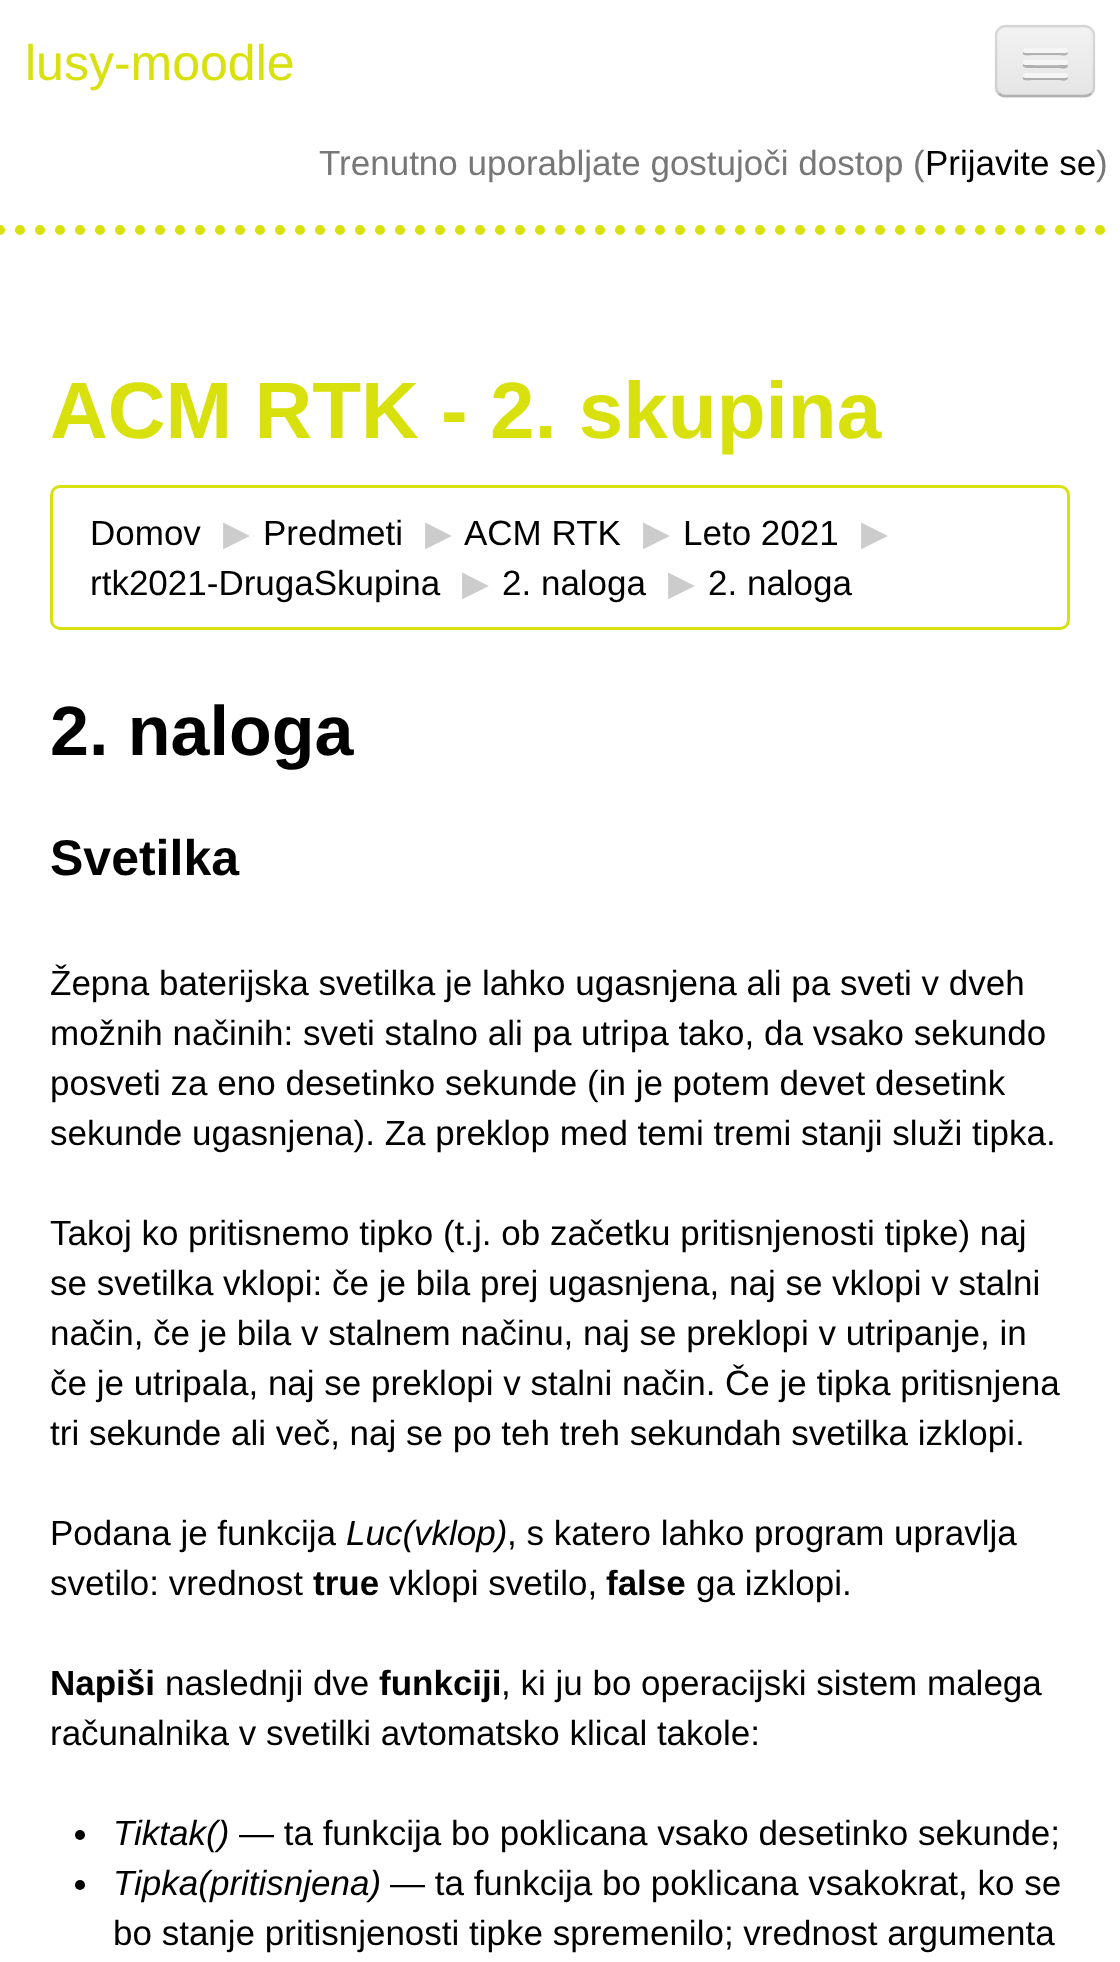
async function draw(canvas) {
  canvas.width = 1120;
  canvas.height = 1962;
  const ctx = canvas.getContext('2d');
  ctx.miterLimit = 4;
  ctx.fontKerning = 'normal';
  function label(s, x, y, font, color) {
    ctx.font = font;
    ctx.fillStyle = color;
    ctx.fillText(s, x, y);
  }
  function rect(x, y, w, h, color) {
    ctx.fillStyle = color;
    ctx.fillRect(x, y, w, h);
  }
  function roundedRect(x, y, w, h, r, color) {
    ctx.fillStyle = color;
    ctx.beginPath();
    ctx.roundRect(x, y, w, h, r);
    ctx.fill();
  }
  let gradient, path;

  rect(0, 0, 1120, 1962, '#fff');
  path = new Path2D('M0 230H1120');
  ctx.strokeStyle = '#d8e00d';
  ctx.lineWidth = 10;
  ctx.lineCap = 'round';
  ctx.setLineDash([0, 20]);
  ctx.stroke(path);
  label('lusy-moodle', 25, 80, '50px Liberation Sans', '#d8e00d');
  roundedRect(995, 25, 100, 73, 10, '#ededed');
  ctx.save();
  ctx.beginPath();
  ctx.roundRect(995, 25, 100, 73, 10);
  ctx.clip();
  gradient = ctx.createLinearGradient(1045, 27, 1045, 95);
  gradient.addColorStop(0, '#f2f2f2');
  gradient.addColorStop(1, '#e5e5e5');
  ctx.fillStyle = gradient;
  ctx.fillRect(995, 28, 100, 67);
  ctx.restore();
  path = new Path2D('M1091 93.5C1089.5 95.5 1087.5 96 1085 96H1005C1002.5 96 1000.5 95.5 999 93.5');
  ctx.strokeStyle = '#00000040';
  ctx.lineWidth = 2.5;
  ctx.lineCap = 'butt';
  ctx.setLineDash([]);
  ctx.stroke(path);
  path = new Path2D('M999 93.5C997 92 996 90 996 87.5V35C996 32.5 997 30.5 999 29C1000.5 27 1002.5 26 1005 26H1085C1087.5 26 1089.5 27 1091 29C1093 30.5 1094 32.5 1094 35V87.5C1094 90 1093 92 1091 93.5');
  ctx.strokeStyle = '#0000001a';
  ctx.stroke(path);
  ctx.fillStyle = '#b2b2b2';
  path = new Path2D('M1023 52C1021 57 1031 55 1032 55H1059C1060 55 1067 57 1068 53L1067 51L1065 52H1025Z');
  ctx.fill(path);
  roundedRect(1023, 48, 45, 5, 2.5, '#f5f5f5');
  ctx.fillStyle = '#b0b0b0';
  path = new Path2D('M1023 64C1021 69 1032 68 1032 68H1059C1060 68 1067 70 1068 66L1067 64L1065 65C1062 65 1025 66 1023 64Z');
  ctx.fill(path);
  roundedRect(1023, 60, 45, 5, 2.5, '#f5f5f5');
  ctx.fillStyle = '#aeaeae';
  path = new Path2D('M1023 77C1021 82 1031 80 1032 80H1059C1060 80 1067 82 1068 78L1067 76L1065 77H1025Z');
  ctx.fill(path);
  roundedRect(1023, 73, 45, 5, 2.5, '#f5f5f5');
  label('Trenutno uporabljate gostujoči dostop (', 319, 175, '35px Liberation Sans', '#777');
  label('Prijavite se', 925, 175, '35px Liberation Sans', '#000001');
  label(')', 1096, 175, '35px Liberation Sans', '#777');
  label('ACM RTK - 2. skupina', 50, 438, 'bold 80px Liberation Sans', '#d8e00d');
  ctx.beginPath();
  ctx.roundRect(51.5, 486.5, 1017, 142, 8.5);
  ctx.strokeStyle = '#d8e00d';
  ctx.lineWidth = 3;
  ctx.stroke();
  label('Domov', 90, 545, '35px Liberation Sans', '#000001');
  label('▶︎', 223, 545, '35px DejaVu Sans', '#ccc');
  label('Predmeti', 263, 545, '35px Liberation Sans', '#000001');
  label('▶︎', 425, 545, '35px DejaVu Sans', '#ccc');
  label('ACM RTK', 464, 545, '35px Liberation Sans', '#000001');
  label('▶︎', 643, 545, '35px DejaVu Sans', '#ccc');
  label('Leto 2021', 683, 545, '35px Liberation Sans', '#000001');
  label('▶︎', 861, 545, '35px DejaVu Sans', '#ccc');
  label('rtk2021-DrugaSkupina', 90, 595, '35px Liberation Sans', '#000001');
  label('▶︎', 462, 595, '35px DejaVu Sans', '#ccc');
  label('2. naloga', 502, 595, '35px Liberation Sans', '#000001');
  label('▶︎', 668, 595, '35px DejaVu Sans', '#ccc');
  label('2. naloga', 708, 595, '35px Liberation Sans', '#000001');
  label('2. naloga', 50, 755, 'bold 70px Liberation Sans', '#000001');
  label('Svetilka', 50, 875, 'bold 50px Liberation Sans', '#000001');
  label('Žepna baterijska svetilka je lahko ugasnjena ali pa sveti v dveh', 50, 995, '35px Liberation Sans', '#000001');
  label('možnih načinih: sveti stalno ali pa utripa tako, da vsako sekundo', 50, 1045, '35px Liberation Sans', '#000001');
  label('posveti za eno desetinko sekunde (in je potem devet desetink', 50, 1095, '35px Liberation Sans', '#000001');
  label('sekunde ugasnjena). Za preklop med temi tremi stanji služi tipka.', 50, 1145, '35px Liberation Sans', '#000001');
  label('Takoj ko pritisnemo tipko (t.j. ob začetku pritisnjenosti tipke) naj', 50, 1245, '35px Liberation Sans', '#000001');
  label('se svetilka vklopi: če je bila prej ugasnjena, naj se vklopi v stalni', 50, 1295, '35px Liberation Sans', '#000001');
  label('način, če je bila v stalnem načinu, naj se preklopi v utripanje, in', 50, 1345, '35px Liberation Sans', '#000001');
  label('če je utripala, naj se preklopi v stalni način. Če je tipka pritisnjena', 50, 1395, '35px Liberation Sans', '#000001');
  label('tri sekunde ali več, naj se po teh treh sekundah svetilka izklopi.', 50, 1445, '35px Liberation Sans', '#000001');
  label('Podana je funkcija', 50, 1545, '35px Liberation Sans', '#000001');
  label('Luc(vklop)', 346, 1545, 'italic 35px Liberation Sans', '#000001');
  label(', s katero lahko program upravlja', 507, 1545, '35px Liberation Sans', '#000001');
  label('svetilo: vrednost', 50, 1595, '35px Liberation Sans', '#000001');
  label('true', 313, 1595, 'bold 35px Liberation Sans', '#000001');
  label('vklopi svetilo,', 389, 1595, '35px Liberation Sans', '#000001');
  label('false', 606, 1595, 'bold 35px Liberation Sans', '#000001');
  label('ga izklopi.', 696, 1595, '35px Liberation Sans', '#000001');
  label('Napiši', 50, 1695, 'bold 35px Liberation Sans', '#000001');
  label('naslednji dve', 165, 1695, '35px Liberation Sans', '#000001');
  label('funkciji', 379, 1695, 'bold 35px Liberation Sans', '#000001');
  label(', ki ju bo operacijski sistem malega', 501, 1695, '35px Liberation Sans', '#000001');
  label('računalnika v svetilki avtomatsko klical takole:', 50, 1745, '35px Liberation Sans', '#000001');
  ctx.beginPath();
  ctx.arc(80, 1835, 5, 0, 2 * Math.PI);
  ctx.fill();
  label('Tiktak()', 113, 1845, 'italic 35px Liberation Sans', '#000001');
  label('— ta funkcija bo poklicana vsako desetinko sekunde;', 239, 1845, '35px Liberation Sans', '#000001');
  ctx.beginPath();
  ctx.arc(80, 1885, 5, 0, 2 * Math.PI);
  ctx.fill();
  label('Tipka(pritisnjena)', 113, 1895, 'italic 35px Liberation Sans', '#000001');
  label('— ta funkcija bo poklicana vsakokrat, ko se', 390, 1895, '35px Liberation Sans', '#000001');
  label('bo stanje pritisnjenosti tipke spremenilo; vrednost argumenta', 113, 1945, '35px Liberation Sans', '#000001');
}

draw(document.querySelector('canvas'));
